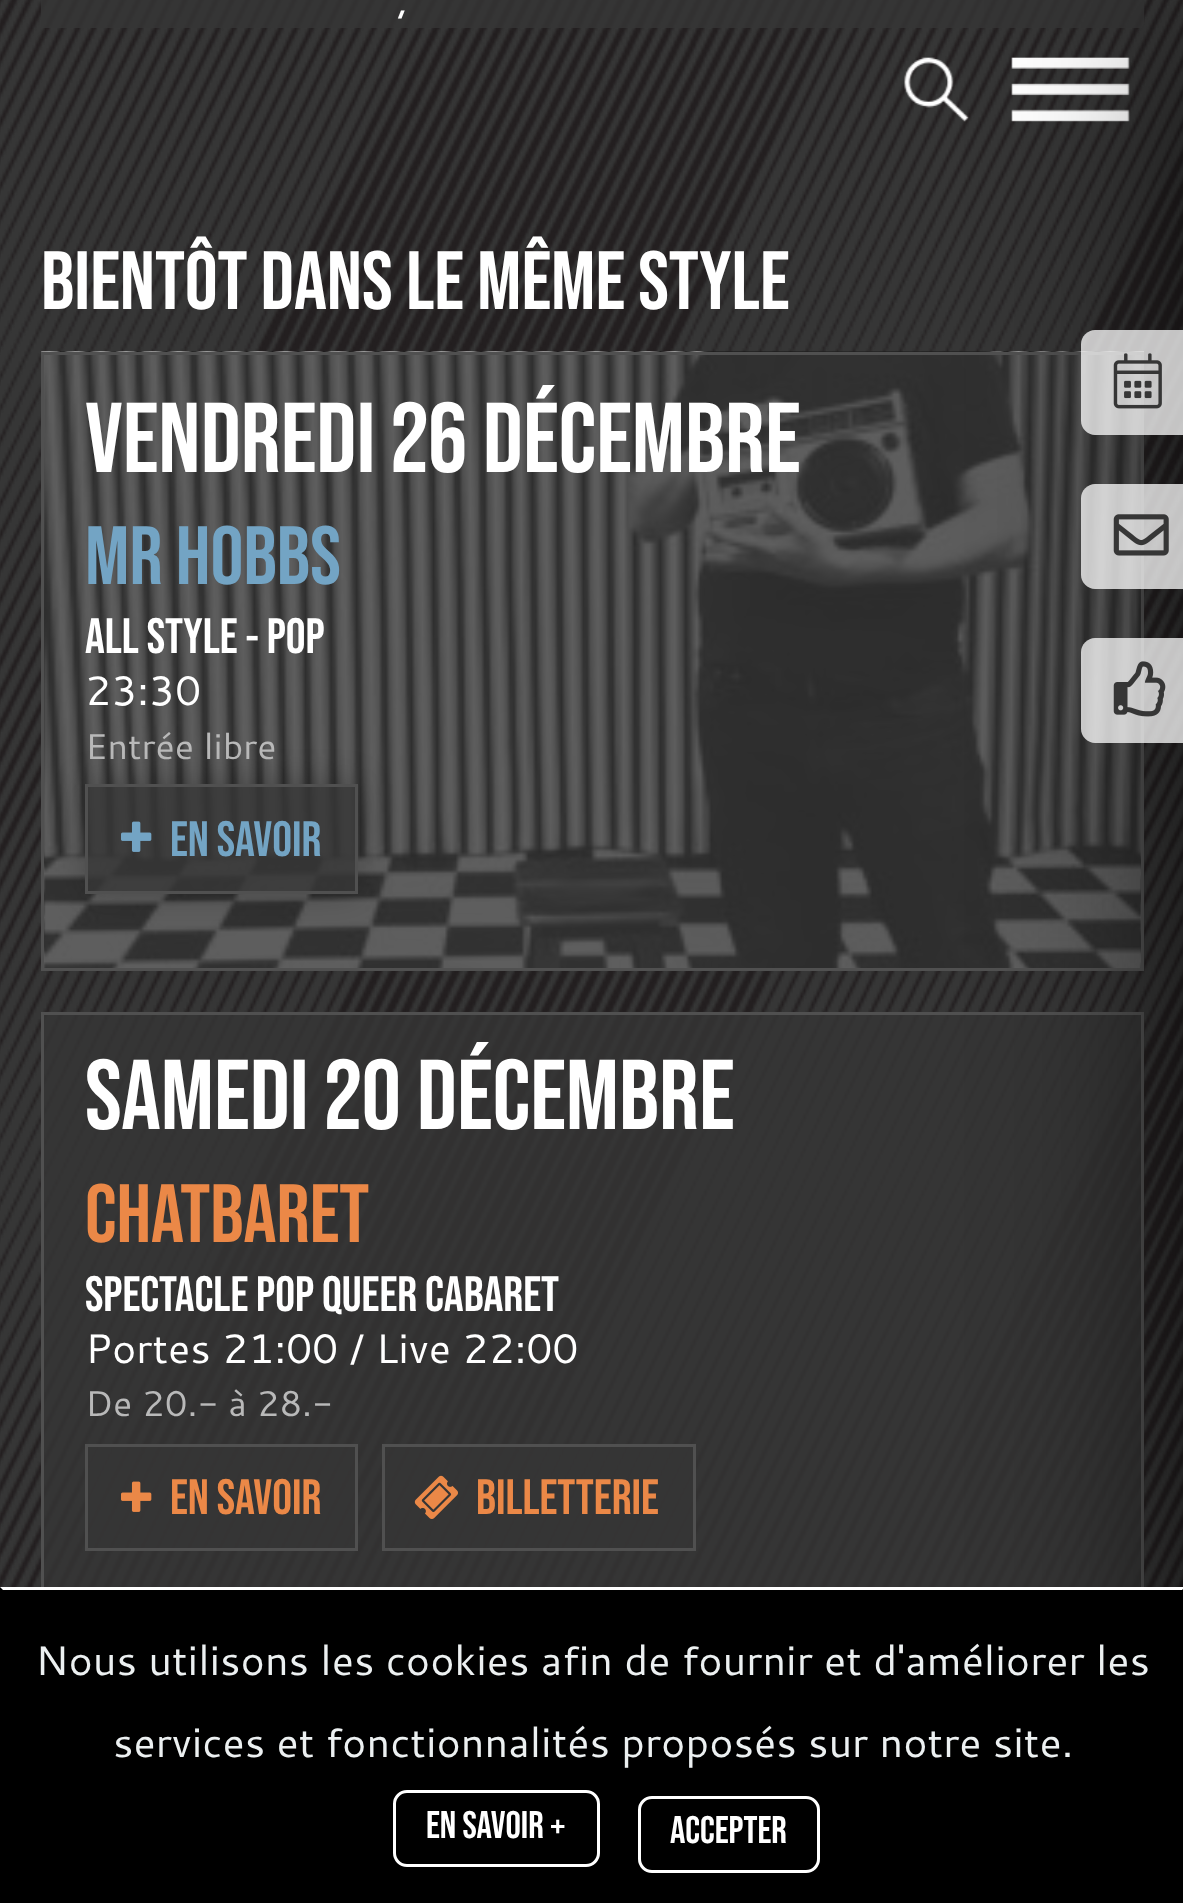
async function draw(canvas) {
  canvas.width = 1183;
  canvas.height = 1903;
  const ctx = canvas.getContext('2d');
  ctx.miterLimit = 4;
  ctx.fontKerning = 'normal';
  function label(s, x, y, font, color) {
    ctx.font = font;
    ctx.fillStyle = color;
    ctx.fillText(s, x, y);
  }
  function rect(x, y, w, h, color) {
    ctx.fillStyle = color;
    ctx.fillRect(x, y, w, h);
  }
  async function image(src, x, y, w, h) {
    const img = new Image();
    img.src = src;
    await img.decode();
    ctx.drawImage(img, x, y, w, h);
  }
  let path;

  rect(0, 0, 1183, 1903, '#363636');
  await image('assets/img1.png', 0, 0, 1183, 1587);
  rect(41, 0, 1103, 28, '#363636cc');
  label(',', 397, 14, '41.25px Cantarell', '#fff');
  label('BIENTÔT DANS LE MÊME STYLE', 41, 309, 'bold 82.5px Bebas Neue', '#fff');
  await image('assets/img2.png', 41, 351, 1103, 617);
  ctx.strokeStyle = '#505050';
  ctx.lineWidth = 3;
  ctx.strokeRect(42.5, 353.5, 1100, 616);
  label('VENDREDI 26 DÉCEMBRE', 85, 472, 'bold 99px Bebas Neue', '#fff');
  label('MR HOBBS', 85, 584, 'bold 82.5px Bebas Neue', '#73a4c4');
  label('ALL STYLE - POP', 85, 653, 'bold 49.5px Bebas Neue', '#fff');
  label('23:30', 85, 705, '41.25px Cantarell', '#fff');
  label('Entrée libre', 85, 759, '35.75px Cantarell', '#b9b9b9');
  ctx.save();
  path = new Path2D('M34 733H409V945H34ZM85 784H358V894H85Z');
  ctx.clip(path, 'evenodd');
  ctx.fillStyle = '#00000040';
  ctx.filter = 'blur(16.5px)';
  ctx.beginPath();
  ctx.rect(85, 784, 273, 110);
  ctx.fill();
  ctx.filter = 'none';
  ctx.restore();
  ctx.fillStyle = '#363636cc';
  ctx.beginPath();
  ctx.rect(86.5, 785.5, 270, 107);
  ctx.fill();
  ctx.stroke();
  await image('assets/img3.png', 121, 821, 31, 31);
  label('EN SAVOIR', 170, 856, 'bold 49.5px Bebas Neue', '#73a4c4');
  ctx.strokeRect(42.5, 1013.5, 1100, 613);
  rect(44, 1015, 1097, 572, '#363636cc');
  label('SAMEDI 20 DÉCEMBRE', 85, 1129, 'bold 99px Bebas Neue', '#fff');
  label('CHATBARET', 85, 1242, 'bold 82.5px Bebas Neue', '#eb8847');
  label('SPECTACLE POP QUEER CABARET', 85, 1311, 'bold 49.5px Bebas Neue', '#fff');
  label('Portes 21:00 / Live 22:00', 85, 1363, '41.25px Cantarell', '#fff');
  label('De 20.- à 28.-', 85, 1416, '35.75px Cantarell', '#b9b9b9');
  ctx.fillStyle = '#363636cc';
  ctx.beginPath();
  ctx.rect(86.5, 1445.5, 270, 104);
  ctx.fill();
  ctx.stroke();
  await image('assets/img4.png', 121, 1481, 31, 31);
  label('EN SAVOIR', 170, 1514, 'bold 49.5px Bebas Neue', '#eb8847');
  ctx.fillStyle = '#363636cc';
  ctx.beginPath();
  ctx.rect(383.5, 1445.5, 311, 104);
  ctx.fill();
  ctx.stroke();
  await image('assets/img5.png', 414, 1475, 44, 44);
  label('BILLETTERIE', 476, 1514, 'bold 49.5px Bebas Neue', '#eb8847');
  await image('assets/img9.png', 904, 57, 65, 65);
  await image('assets/img10.png', 1011, 57, 119, 65);
  ctx.fillStyle = '#000';
  ctx.filter = 'blur(110px)';
  ctx.beginPath();
  ctx.rect(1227, 41, 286, 1821);
  ctx.fill();
  ctx.filter = 'none';
  ctx.fillStyle = '#ffffffbf';
  path = new Path2D('M1095 330H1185V435H1095C1087.5 435 1081 428.5 1081 421V344C1081 336.5 1087.5 330 1095 330Z');
  ctx.fill(path);
  await image('assets/img6.png', 1113, 353, 49, 56);
  path = new Path2D('M1095 484H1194V589H1095C1087.5 589 1081 582.5 1081 575V498C1081 490.5 1087.5 484 1095 484Z');
  ctx.fill(path);
  await image('assets/img7.png', 1113, 514, 56, 42);
  path = new Path2D('M1095 638H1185V743H1095C1087.5 743 1081 736.5 1081 729V652C1081 644.5 1087.5 638 1095 638Z');
  ctx.fill(path);
  await image('assets/img8.png', 1113, 661, 53, 56);
  rect(0, 1587, 1183, 316, '#000');
  ctx.fillStyle = '#fff';
  path = new Path2D('M0 1587H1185L1182 1590H3Z');
  ctx.fill(path);
  label('Nous utilisons les cookies afin de fournir et d\'améliorer les', 35, 1675, '41.25px Cantarell', '#ecf0f1');
  label('services et fonctionnalités proposés sur notre site.', 113, 1757, '41.25px Cantarell', '#ecf0f1');
  ctx.beginPath();
  ctx.roundRect(394.5, 1791.5, 204, 74, 12.5);
  ctx.strokeStyle = '#fff';
  ctx.stroke();
  label('EN SAVOIR +', 426, 1838, 'bold 38.5px Bebas Neue', '#fff');
  ctx.beginPath();
  ctx.roundRect(639.5, 1797.5, 179, 74, 12.5);
  ctx.stroke();
  label('ACCEPTER', 670, 1843, 'bold 38.5px Bebas Neue', '#fff');
}

draw(document.querySelector('canvas'));
